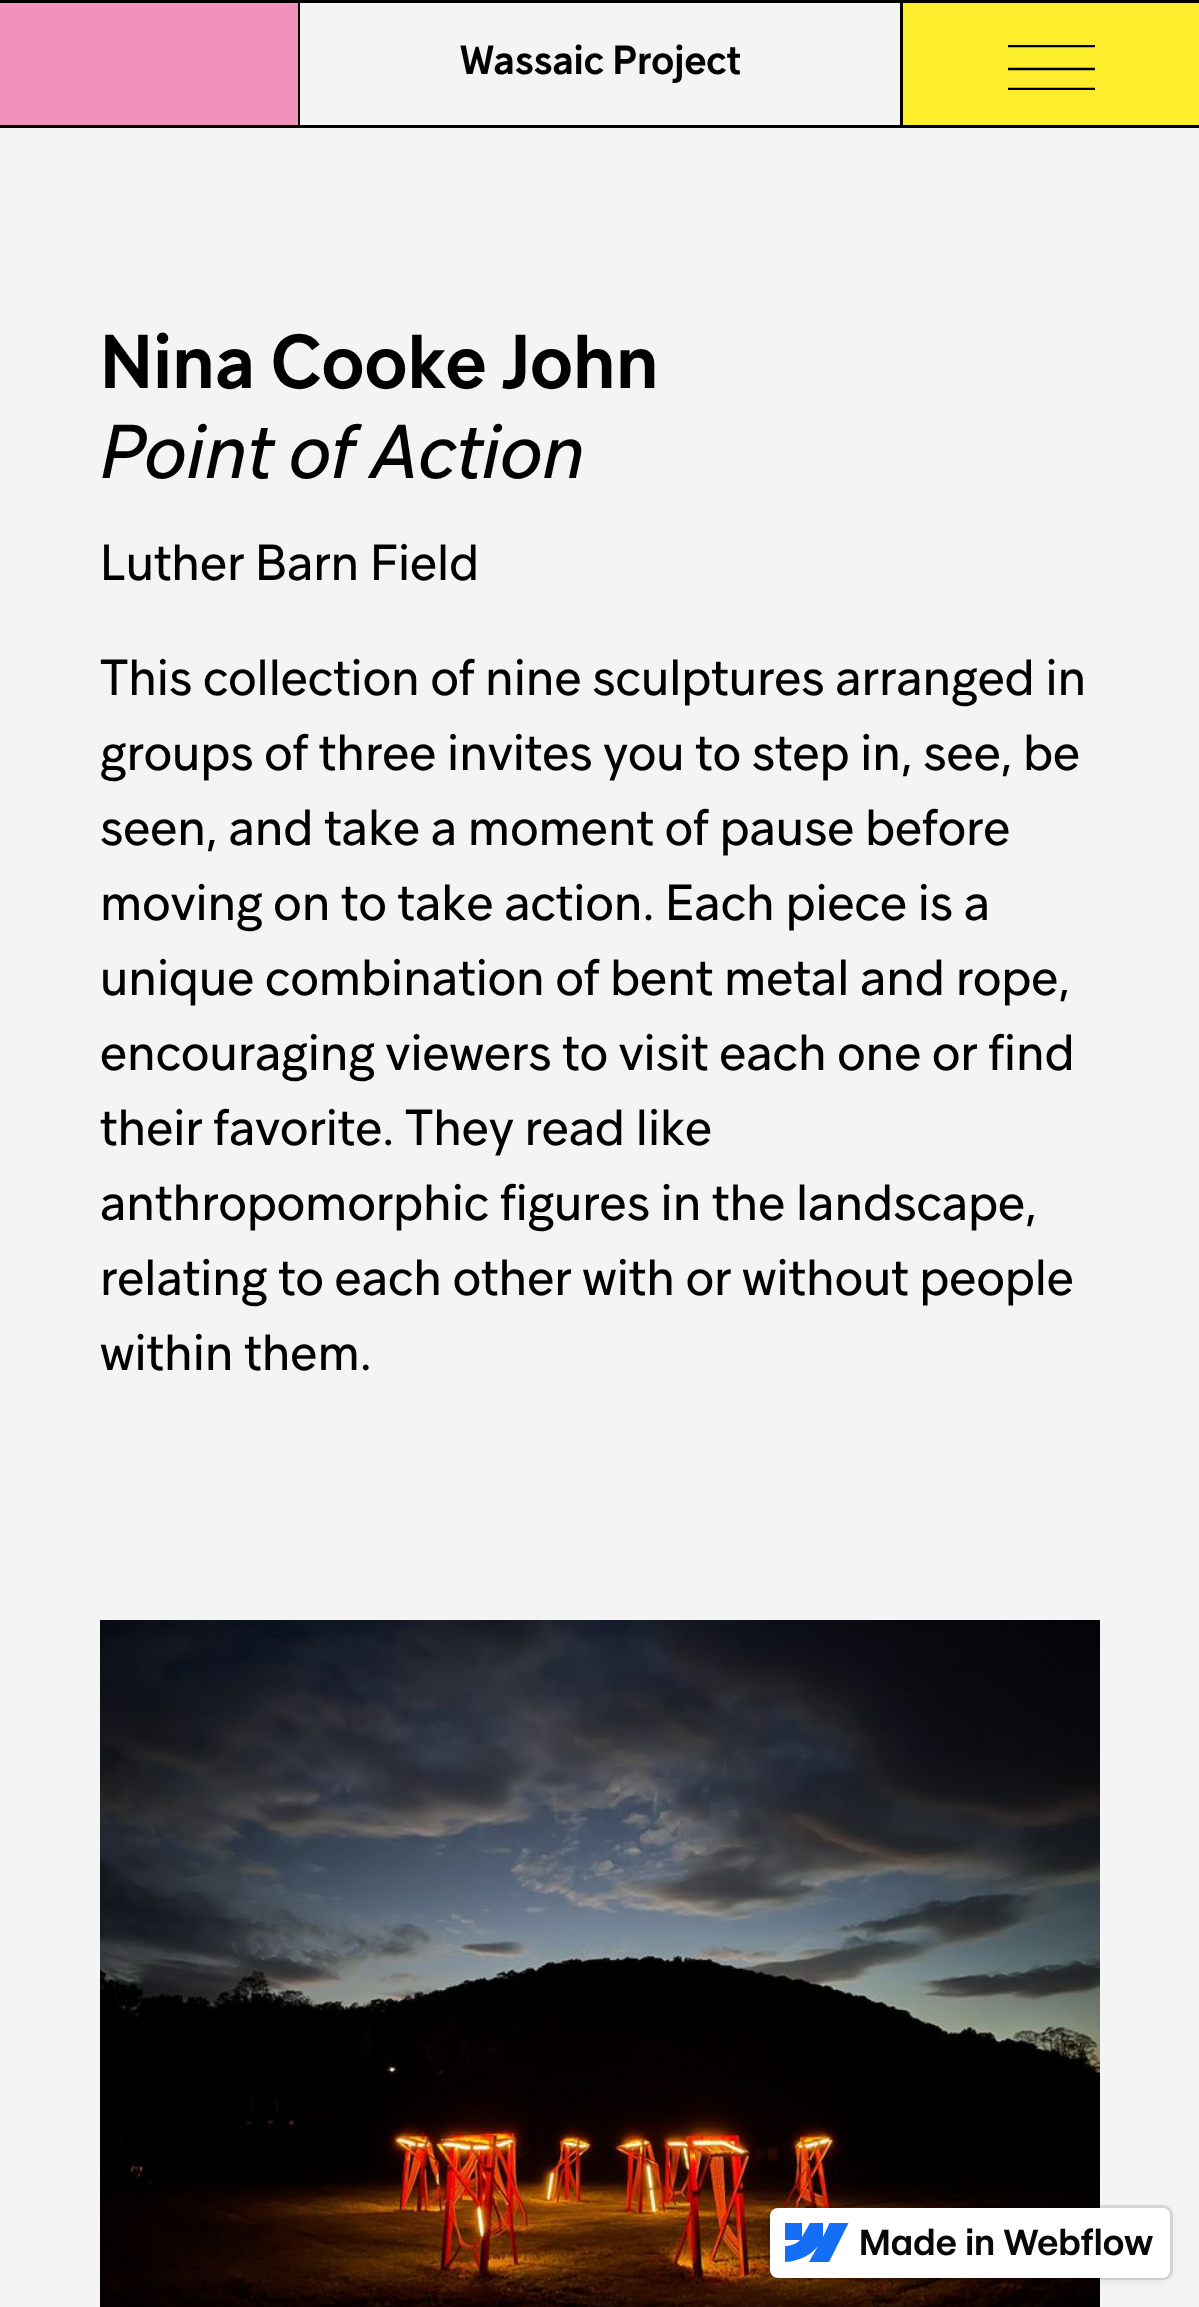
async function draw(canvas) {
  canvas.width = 1199;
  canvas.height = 2307;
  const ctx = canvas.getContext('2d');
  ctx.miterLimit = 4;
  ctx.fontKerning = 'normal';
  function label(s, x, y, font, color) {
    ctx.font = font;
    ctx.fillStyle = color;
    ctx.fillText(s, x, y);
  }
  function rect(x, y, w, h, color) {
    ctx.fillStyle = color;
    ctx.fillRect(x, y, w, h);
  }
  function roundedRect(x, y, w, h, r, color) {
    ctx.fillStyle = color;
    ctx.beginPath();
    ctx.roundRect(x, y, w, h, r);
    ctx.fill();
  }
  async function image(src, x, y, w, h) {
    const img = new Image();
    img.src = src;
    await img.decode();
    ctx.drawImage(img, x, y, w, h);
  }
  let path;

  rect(0, 0, 1199, 2307, '#f4f4f4');
  rect(0, 0, 1199, 3, '#000');
  rect(0, 125, 1199, 3, '#000');
  rect(0, 3, 298, 122, '#f291bb');
  rect(298, 3, 2, 122, '#000');
  label('Wassaic Project', 460, 74, '500 40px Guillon', '#000');
  rect(903, 3, 296, 122, '#fcee2d');
  rect(900, 3, 3, 122, '#000');
  ctx.save();
  ctx.beginPath();
  ctx.rect(1008, 45, 87, 45);
  ctx.clip();
  path = new Path2D('M1007.5 89H1095');
  ctx.strokeStyle = '#000';
  ctx.lineWidth = 2.5;
  ctx.stroke(path);
  path = new Path2D('M1007.5 69H1095');
  ctx.stroke(path);
  path = new Path2D('M1007.5 46H1095');
  ctx.stroke(path);
  ctx.restore();
  label('Nina Cooke John', 100, 388, '500 75px Guillon', '#000');
  label('Point of Action', 100, 478, 'italic 75px Guillon', '#000');
  label('Luther Barn Field', 100, 580, '50px Guillon', '#000');
  label('This collection of nine sculptures arranged in', 100, 695, '50px Guillon', '#000');
  label('groups of three invites you to step in, see, be', 100, 770, '50px Guillon', '#000');
  label('seen, and take a moment of pause before', 100, 845, '50px Guillon', '#000');
  label('moving on to take action. Each piece is a', 100, 920, '50px Guillon', '#000');
  label('unique combination of bent metal and rope,', 100, 995, '50px Guillon', '#000');
  label('encouraging viewers to visit each one or find', 100, 1070, '50px Guillon', '#000');
  label('their favorite. They read like', 100, 1145, '50px Guillon', '#000');
  label('anthropomorphic figures in the landscape,', 100, 1220, '50px Guillon', '#000');
  label('relating to each other with or without people', 100, 1295, '50px Guillon', '#000');
  label('within them.', 100, 1370, '50px Guillon', '#000');
  await image('assets/img1.png', 100, 1620, 1000, 687);
  ctx.fillStyle = '#0000001a';
  ctx.filter = 'blur(4px)';
  ctx.beginPath();
  ctx.roundRect(770, 2210, 400, 70, 8);
  ctx.fill();
  ctx.filter = 'none';
  ctx.beginPath();
  ctx.roundRect(769.5, 2206.5, 402, 72, 8.5);
  ctx.strokeStyle = '#0000001a';
  ctx.lineWidth = 3;
  ctx.stroke();
  roundedRect(770, 2208, 400, 70, 8, '#fff');
  ctx.save();
  ctx.beginPath();
  ctx.rect(785, 2223, 65, 40);
  ctx.clip();
  ctx.fillStyle = '#146ef5';
  path = new Path2D('M849 2222L829 2262H809L818 2246C811 2255 800 2261 785 2262V2246C785 2246 795 2246 800 2240H785V2223H802V2237L810 2223H823V2237L830 2222Z');
  ctx.fill(path, 'evenodd');
  ctx.restore();
  await image('assets/img2.png', 861, 2228, 292, 28);
}

draw(document.querySelector('canvas'));
